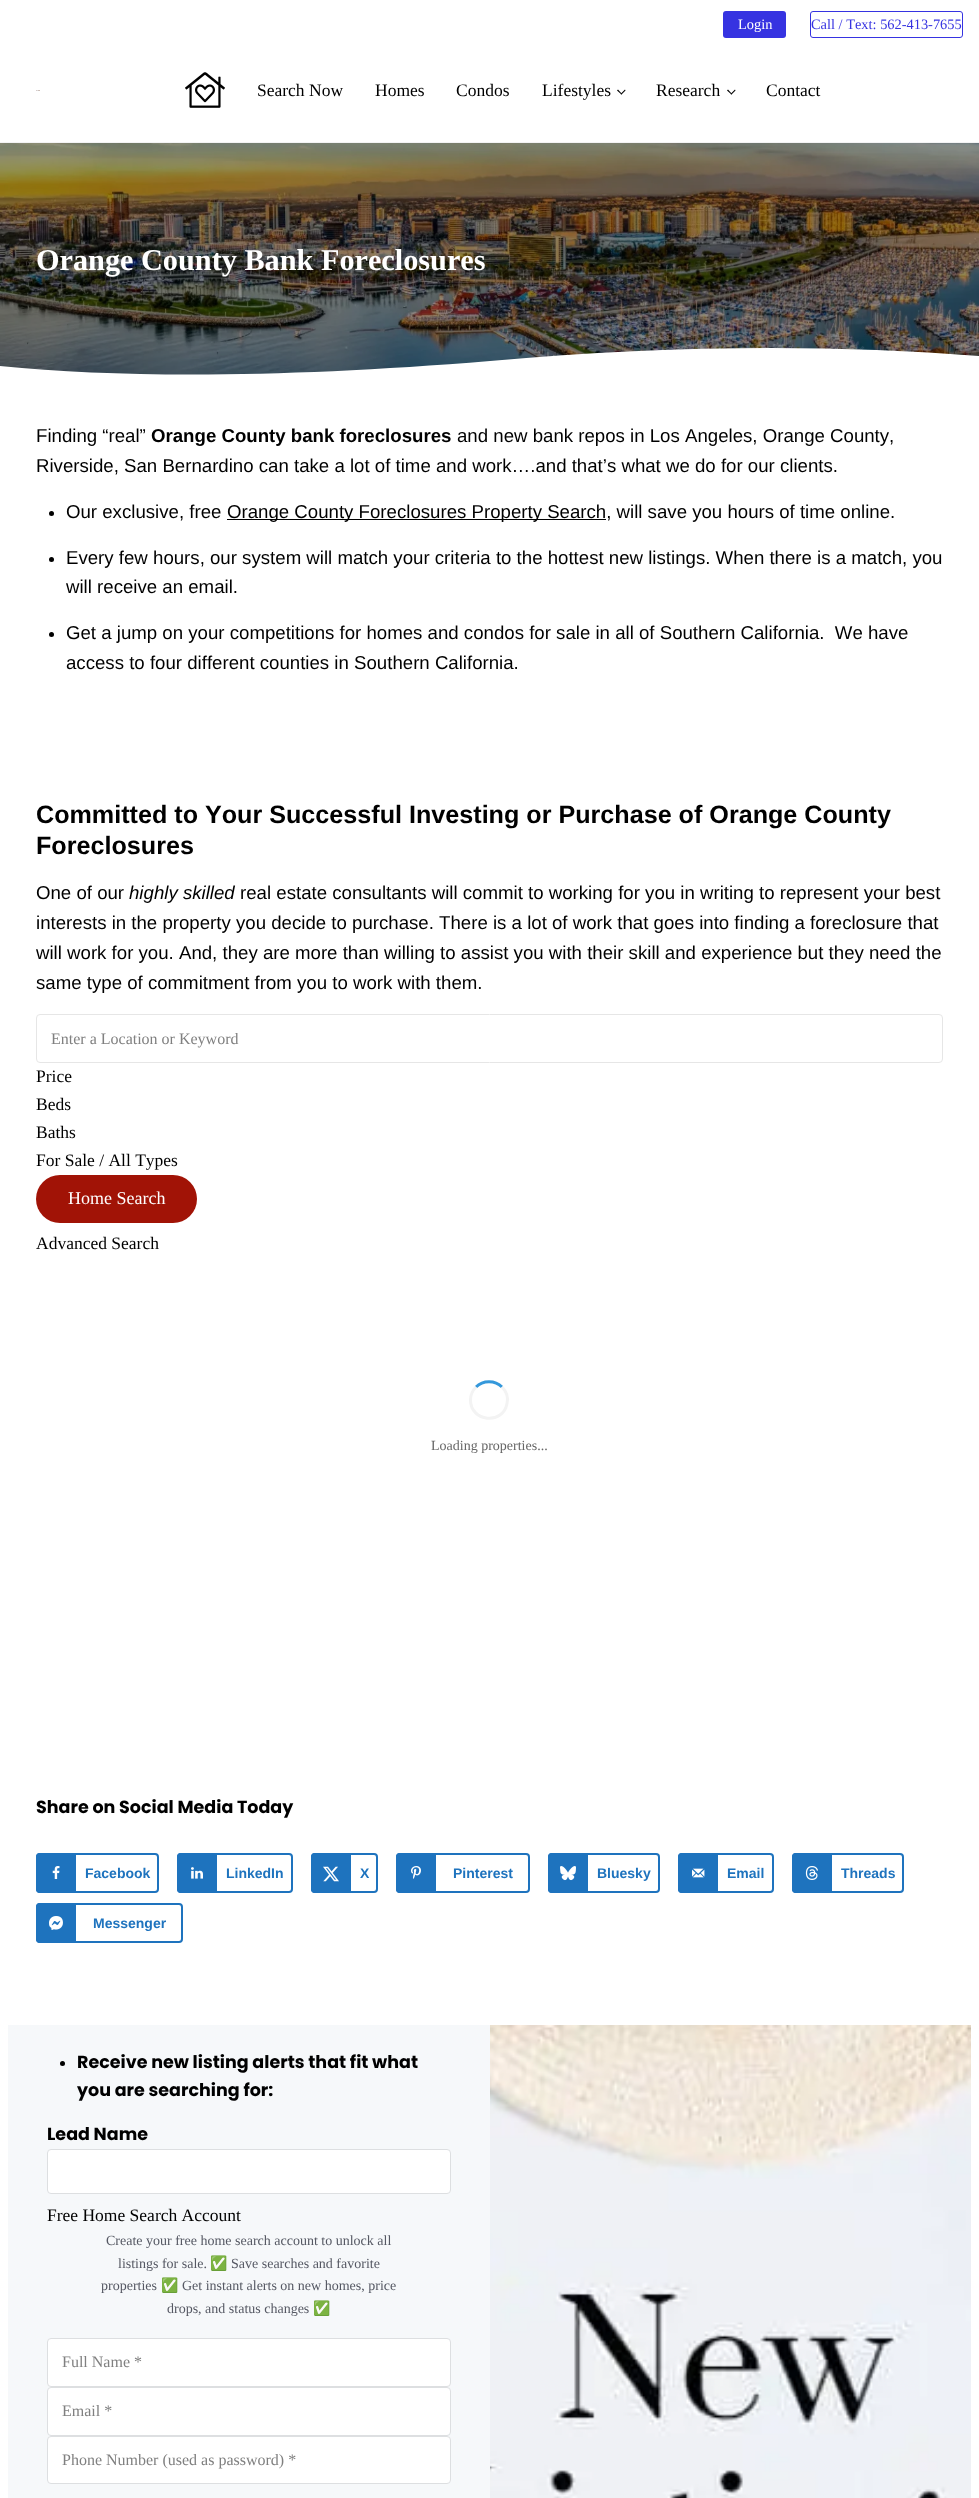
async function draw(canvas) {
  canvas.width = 979;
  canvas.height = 2498;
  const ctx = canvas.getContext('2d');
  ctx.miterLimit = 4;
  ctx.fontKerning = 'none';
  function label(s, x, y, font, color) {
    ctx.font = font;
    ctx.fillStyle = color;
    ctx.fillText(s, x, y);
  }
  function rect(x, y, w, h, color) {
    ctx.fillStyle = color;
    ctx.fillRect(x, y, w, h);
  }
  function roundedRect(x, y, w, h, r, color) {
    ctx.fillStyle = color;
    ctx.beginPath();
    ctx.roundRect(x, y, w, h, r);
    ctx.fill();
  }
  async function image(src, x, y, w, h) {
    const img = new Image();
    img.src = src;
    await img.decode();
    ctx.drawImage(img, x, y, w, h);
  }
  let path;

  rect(0, 0, 979, 2498, '#fff');
  roundedRect(723, 11, 63, 27, 3, '#3633e1');
  label('Login', 738, 29, '14.4px Liberation Serif', '#fff');
  ctx.beginPath();
  ctx.roundRect(810.5, 11.5, 152, 26, 2.5);
  ctx.strokeStyle = '#3633e1';
  ctx.stroke();
  label('Call / Text: 562-413-7655', 811, 29, '14.4px Liberation Serif', '#3633e1');
  rect(0, 142, 979, 1, '#f3f3f4');
  await image('assets/img1.png', 36, 90, 4, 1);
  await image('assets/img2.png', 185, 72, 40, 36);
  label('Search Now', 257, 96, '17.5px Liberation Serif', '#000');
  label('Homes', 375, 96, '17.5px Liberation Serif', '#000');
  label('Condos', 456, 96, '17.5px Liberation Serif', '#000');
  label('Lifestyles', 542, 96, '17.5px Liberation Serif', '#000');
  path = new Path2D('M625 89.5L625.5 90.5L621.5 94.5L620.5 94Z');
  ctx.fill(path);
  path = new Path2D('M618 89.5L622 94L621.5 94.5L617 90.5Z');
  ctx.fill(path);
  label('Research', 656, 96, '17.5px Liberation Serif', '#000');
  path = new Path2D('M735 89.5L735.5 90.5L731.5 94.5L730.5 94Z');
  ctx.fill(path);
  path = new Path2D('M728 89.5L732 94L731.5 94.5L727 90.5Z');
  ctx.fill(path);
  label('Contact', 766, 96, '17.5px Liberation Serif', '#000');
  await image('assets/img3.png', 0, 143, 979, 232);
  label('Orange County Bank Foreclosures', 36, 270, 'bold 30.25px Liberation Serif', '#fff');
  path = new Path2D('M0 366C131 379 294 377 490 361C666 345 829 344 979 356V375H0Z');
  ctx.fill(path);
  label('Finding “real”', 36, 442, '18.65px Liberation Sans', '#000');
  label('Orange County bank foreclosures', 151, 442, 'bold 18.65px Liberation Sans', '#000');
  label('and new bank repos in Los Angeles, Orange County,', 457, 442, '18.65px Liberation Sans', '#000');
  label('Riverside, San Bernardino can take a lot of time and work….and that’s what we do for our clients.', 36, 472, '18.65px Liberation Sans', '#000');
  ctx.beginPath();
  ctx.arc(51.5, 513.5, 2.5, 0, 2 * Math.PI);
  ctx.fill();
  label('Our exclusive, free', 66, 518, '18.65px Liberation Sans', '#000');
  rect(227, 519, 379, 1, '#000');
  label('Orange County Foreclosures Property Search, will save you hours of time online.', 227, 518, '18.65px Liberation Sans', '#000');
  ctx.beginPath();
  ctx.arc(51.5, 559.5, 2.5, 0, 2 * Math.PI);
  ctx.fill();
  label('Every few hours, our system will match your criteria to the hottest new listings. When there is a match, you', 66, 564, '18.65px Liberation Sans', '#000');
  label('will receive an email.', 66, 593, '18.65px Liberation Sans', '#000');
  ctx.beginPath();
  ctx.arc(51.5, 634.5, 2.5, 0, 2 * Math.PI);
  ctx.fill();
  label('Get a jump on your competitions for homes and condos for sale in all of Southern California.  We have', 66, 639, '18.65px Liberation Sans', '#000');
  label('access to four different counties in Southern California.', 66, 669, '18.65px Liberation Sans', '#000');
  label('Committed to Your Successful Investing or Purchase of Orange County', 36, 823, 'bold 25.15px Liberation Sans', '#000');
  label('Foreclosures', 36, 854, 'bold 25.15px Liberation Sans', '#000');
  label('One of our', 36, 899, '18.65px Liberation Sans', '#000');
  label('highly skilled', 129, 899, 'italic 18.65px Liberation Sans', '#000');
  label('real estate consultants will commit to working for you in writing to represent your best', 240, 899, '18.65px Liberation Sans', '#000');
  label('interests in the property you decide to purchase. There is a lot of work that goes into finding a foreclosure that', 36, 929, '18.65px Liberation Sans', '#000');
  label('will work for you. And, they are more than willing to assist you with their skill and experience but they need the', 36, 959, '18.65px Liberation Sans', '#000');
  label('same type of commitment from you to work with them.', 36, 989, '18.65px Liberation Sans', '#000');
  ctx.beginPath();
  ctx.roundRect(36.5, 1014.5, 906, 48, 3.5);
  ctx.strokeStyle = '#e6e6e6';
  ctx.stroke();
  label('Enter a Location or Keyword', 51, 1044, '16px Liberation Serif', '#808080');
  label('Price', 36, 1082, '17.5px Liberation Serif', '#000');
  label('Beds', 36, 1110, '17.5px Liberation Serif', '#000');
  label('Baths', 36, 1138, '17.5px Liberation Serif', '#000');
  label('For Sale / All Types', 36, 1166, '17.5px Liberation Serif', '#000');
  roundedRect(36, 1175, 161, 48, 24, '#a11306');
  label('Home Search', 68, 1204, '18px Liberation Serif', '#fff');
  label('Advanced Search', 36, 1249, '17.5px Liberation Serif', '#000');
  path = new Path2D('M476 1387C483 1380 495 1380 502 1387');
  ctx.strokeStyle = '#3498db';
  ctx.lineWidth = 3;
  ctx.stroke(path);
  path = new Path2D('M502 1387C506.5 1391.5 508.5 1397.5 507 1403.5C503 1425.5 470.5 1422 470.5 1400C470.5 1395 472.5 1390.5 476 1387');
  ctx.strokeStyle = '#f3f3f3';
  ctx.stroke(path);
  label('Loading properties...', 431, 1450, '14px Liberation Serif', '#666');
  label('Share on Social Media Today', 36, 1813, 'bold 17.5px Poppins', '#000');
  ctx.beginPath();
  ctx.roundRect(37, 1854, 121, 38, 3);
  ctx.strokeStyle = '#1e73be';
  ctx.lineWidth = 2;
  ctx.stroke();
  ctx.fillStyle = '#1e73be';
  ctx.beginPath();
  ctx.roundRect(37, 1854, 38, 38, [3, 0, 0, 3]);
  ctx.fill();
  ctx.stroke();
  await image('assets/img4.png', 52, 1866, 8, 13);
  label('Facebook', 85, 1878, 'bold 14px Liberation Sans', '#1e73be');
  ctx.beginPath();
  ctx.roundRect(178, 1854, 114, 38, 3);
  ctx.stroke();
  ctx.beginPath();
  ctx.roundRect(178, 1854, 38, 38, [3, 0, 0, 3]);
  ctx.fill();
  ctx.stroke();
  await image('assets/img5.png', 191, 1867, 12, 12);
  label('LinkedIn', 226, 1878, 'bold 14px Liberation Sans', '#1e73be');
  ctx.beginPath();
  ctx.roundRect(312, 1854, 65, 38, 3);
  ctx.stroke();
  ctx.beginPath();
  ctx.roundRect(312, 1854, 38, 38, [3, 0, 0, 3]);
  ctx.fill();
  ctx.stroke();
  await image('assets/img6.png', 323, 1866, 16, 16);
  label('X', 360, 1878, 'bold 14px Liberation Sans', '#1e73be');
  ctx.beginPath();
  ctx.roundRect(397, 1854, 132, 38, 3);
  ctx.stroke();
  ctx.beginPath();
  ctx.roundRect(397, 1854, 38, 38, [3, 0, 0, 3]);
  ctx.fill();
  ctx.stroke();
  await image('assets/img7.png', 411, 1866, 10, 13);
  label('Pinterest', 453, 1878, 'bold 14px Liberation Sans', '#1e73be');
  ctx.beginPath();
  ctx.roundRect(549, 1854, 110, 38, 3);
  ctx.stroke();
  ctx.beginPath();
  ctx.roundRect(549, 1854, 38, 38, [3, 0, 0, 3]);
  ctx.fill();
  ctx.stroke();
  await image('assets/img8.png', 560, 1866, 16, 15);
  label('Bluesky', 597, 1878, 'bold 14px Liberation Sans', '#1e73be');
  ctx.beginPath();
  ctx.roundRect(679, 1854, 94, 38, 3);
  ctx.stroke();
  ctx.beginPath();
  ctx.roundRect(679, 1854, 38, 38, [3, 0, 0, 3]);
  ctx.fill();
  ctx.stroke();
  await image('assets/img9.png', 692, 1868, 13, 10);
  label('Email', 727, 1878, 'bold 14px Liberation Sans', '#1e73be');
  ctx.beginPath();
  ctx.roundRect(793, 1854, 110, 38, 3);
  ctx.stroke();
  ctx.beginPath();
  ctx.roundRect(793, 1854, 38, 38, [3, 0, 0, 3]);
  ctx.fill();
  ctx.stroke();
  await image('assets/img10.png', 805, 1866, 13, 14);
  label('Threads', 841, 1878, 'bold 14px Liberation Sans', '#1e73be');
  ctx.beginPath();
  ctx.roundRect(37, 1904, 145, 38, 3);
  ctx.stroke();
  ctx.beginPath();
  ctx.roundRect(37, 1904, 38, 38, [3, 0, 0, 3]);
  ctx.fill();
  ctx.stroke();
  await image('assets/img11.png', 49, 1916, 14, 14);
  label('Messenger', 93, 1928, 'bold 14px Liberation Sans', '#1e73be');
  rect(8, 2025, 482, 473, '#f6f8fa');
  ctx.fillStyle = '#000';
  ctx.beginPath();
  ctx.arc(62.5, 2063.5, 2.5, 0, 2 * Math.PI);
  ctx.fill();
  label('Receive new listing alerts that fit what', 77, 2068, 'bold 17.5px Poppins', '#000');
  label('you are searching for:', 77, 2096, 'bold 17.5px Poppins', '#000');
  label('Lead Name', 47, 2140, 'bold 17.5px Poppins', '#000');
  ctx.fillStyle = '#fff';
  ctx.beginPath();
  ctx.roundRect(47.5, 2149.5, 403, 44, 3.5);
  ctx.fill();
  ctx.strokeStyle = '#dddfe1';
  ctx.lineWidth = 1;
  ctx.stroke();
  label('Free Home Search Account', 47, 2221, '17.5px Liberation Serif', '#000');
  label('Create your free home search account to unlock all', 106, 2245, '14px Liberation Serif', '#555863');
  label('listings for sale.', 118, 2268, '14px Liberation Serif', '#555863');
  label('✅', 210, 2268, '14px Noto Color Emoji', '#555863');
  label('Save searches and favorite', 231, 2268, '14px Liberation Serif', '#555863');
  label('properties', 101, 2290, '14px Liberation Serif', '#555863');
  label('✅', 161, 2290, '14px Noto Color Emoji', '#555863');
  label('Get instant alerts on new homes, price', 182, 2290, '14px Liberation Serif', '#555863');
  label('drops, and status changes', 167, 2313, '14px Liberation Serif', '#555863');
  label('✅', 313, 2313, '14px Noto Color Emoji', '#555863');
  ctx.fillStyle = '#fff';
  ctx.beginPath();
  ctx.roundRect(47.5, 2338.5, 403, 48, 3.5);
  ctx.fill();
  ctx.stroke();
  label('Full Name *', 62, 2367, '16px Liberation Serif', '#808080');
  ctx.fillStyle = '#fff';
  ctx.beginPath();
  ctx.roundRect(47.5, 2387.5, 403, 48, 3.5);
  ctx.fill();
  ctx.stroke();
  label('Email *', 62, 2416, '16px Liberation Serif', '#808080');
  ctx.fillStyle = '#fff';
  ctx.beginPath();
  ctx.roundRect(47.5, 2436.5, 403, 47, 3.5);
  ctx.fill();
  ctx.stroke();
  label('Phone Number (used as password) *', 62, 2465, '16px Liberation Serif', '#808080');
  await image('assets/img12.png', 490, 2025, 481, 473);
}

draw(document.querySelector('canvas'));
